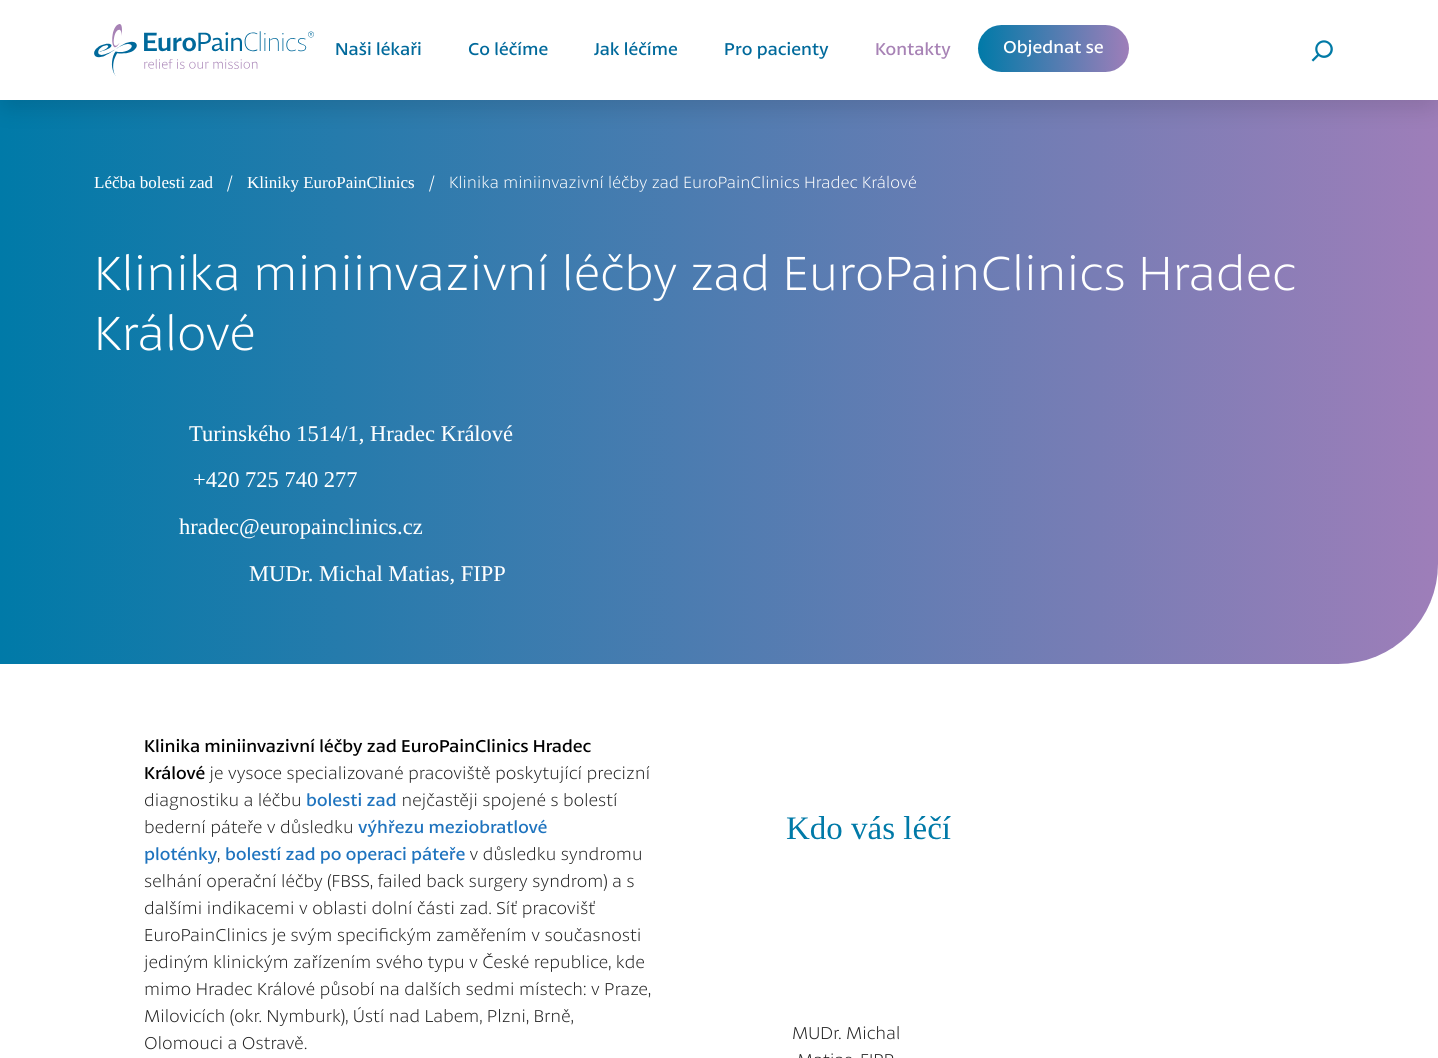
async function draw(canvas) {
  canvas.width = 1438;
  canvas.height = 1058;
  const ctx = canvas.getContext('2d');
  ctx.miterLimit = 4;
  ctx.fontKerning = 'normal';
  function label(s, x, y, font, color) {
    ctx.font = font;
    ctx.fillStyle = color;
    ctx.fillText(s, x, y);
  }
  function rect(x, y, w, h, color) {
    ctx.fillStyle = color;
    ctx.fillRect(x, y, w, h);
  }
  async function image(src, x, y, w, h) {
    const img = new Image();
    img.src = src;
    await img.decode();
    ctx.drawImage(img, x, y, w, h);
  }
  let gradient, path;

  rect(0, 0, 1438, 1058, '#fff');
  gradient = ctx.createLinearGradient(0, 332, 1438, 332);
  gradient.addColorStop(0, '#007aa8');
  gradient.addColorStop(1, '#9e7eb9');
  ctx.fillStyle = gradient;
  ctx.beginPath();
  ctx.roundRect(0, 0, 1438, 664, [0, 0, 100, 0]);
  ctx.fill();
  ctx.fillStyle = '#0000001a';
  ctx.filter = 'blur(10px)';
  ctx.beginPath();
  ctx.rect(0, 10, 1438, 100);
  ctx.fill();
  ctx.filter = 'none';
  rect(0, 0, 1438, 100, '#fff');
  await image('assets/img1.png', 94, 24, 220, 52);
  await image('assets/img2.png', 336, 41, 85, 15);
  await image('assets/img3.png', 468, 41, 80, 15);
  await image('assets/img4.png', 594, 41, 84, 15);
  await image('assets/img5.png', 725, 41, 104, 18);
  await image('assets/img6.png', 876, 42, 75, 17);
  gradient = ctx.createLinearGradient(978, 49, 1129, 48);
  gradient.addColorStop(0, '#007aa8');
  gradient.addColorStop(1, '#9e7eb9');
  ctx.fillStyle = gradient;
  ctx.beginPath();
  ctx.roundRect(978, 25, 151, 47, 23.5);
  ctx.fill();
  await image('assets/img7.png', 1003, 39, 100, 18);
  await image('assets/img8.png', 1311, 40, 22, 22);
  label('Léčba bolesti zad', 94, 188, '17px Liberation Serif', '#fff');
  label('Kliniky EuroPainClinics', 247, 188, '17px Liberation Serif', '#fff');
  path = new Path2D('M227 191.5H228L232.5 175.5H231.5Z');
  ctx.fill(path);
  path = new Path2D('M429 191.5H430L434.5 175.5H433.5Z');
  ctx.fill(path);
  await image('assets/img9.png', 450, 175, 466, 17);
  await image('assets/img10.png', 98, 253, 1197, 48);
  await image('assets/img11.png', 98, 313, 156, 38);
  label('Turinského 1514/1, Hradec Králové', 189, 441, '22.5px Liberation Serif', '#fff');
  label('+420 725 740 277', 193, 487, '22.5px Liberation Serif', '#fff');
  label('hradec@europainclinics.cz', 179, 534, '22.5px Liberation Serif', '#fff');
  label('MUDr. Michal Matias, FIPP', 249, 581, '22.5px Liberation Serif', '#fff');
  await image('assets/img12.png', 145, 738, 446, 18);
  await image('assets/img13.png', 145, 765, 60, 15);
  await image('assets/img14.png', 209, 766, 441, 17);
  await image('assets/img15.png', 145, 793, 155, 17);
  await image('assets/img16.png', 307, 792, 89, 15);
  await image('assets/img17.png', 403, 793, 214, 17);
  await image('assets/img18.png', 145, 819, 207, 18);
  await image('assets/img19.png', 358, 819, 189, 18);
  await image('assets/img20.png', 145, 846, 72, 18);
  await image('assets/img21.png', 217, 857, 3, 6);
  await image('assets/img22.png', 226, 846, 239, 18);
  await image('assets/img23.png', 470, 846, 171, 18);
  await image('assets/img24.png', 144, 874, 490, 17);
  await image('assets/img25.png', 145, 900, 450, 18);
  await image('assets/img26.png', 145, 928, 495, 17);
  await image('assets/img27.png', 143, 953, 501, 19);
  await image('assets/img28.png', 145, 981, 506, 18);
  await image('assets/img29.png', 145, 1006, 428, 20);
  await image('assets/img30.png', 145, 1036, 162, 14);
  label('Kdo vás léčí', 786, 839, '33px Liberation Serif', '#007aa8');
  await image('assets/img31.png', 793, 1026, 106, 14);
  await image('assets/img32.png', 799, 1053, 95, 5);
}

draw(document.querySelector('canvas'));
